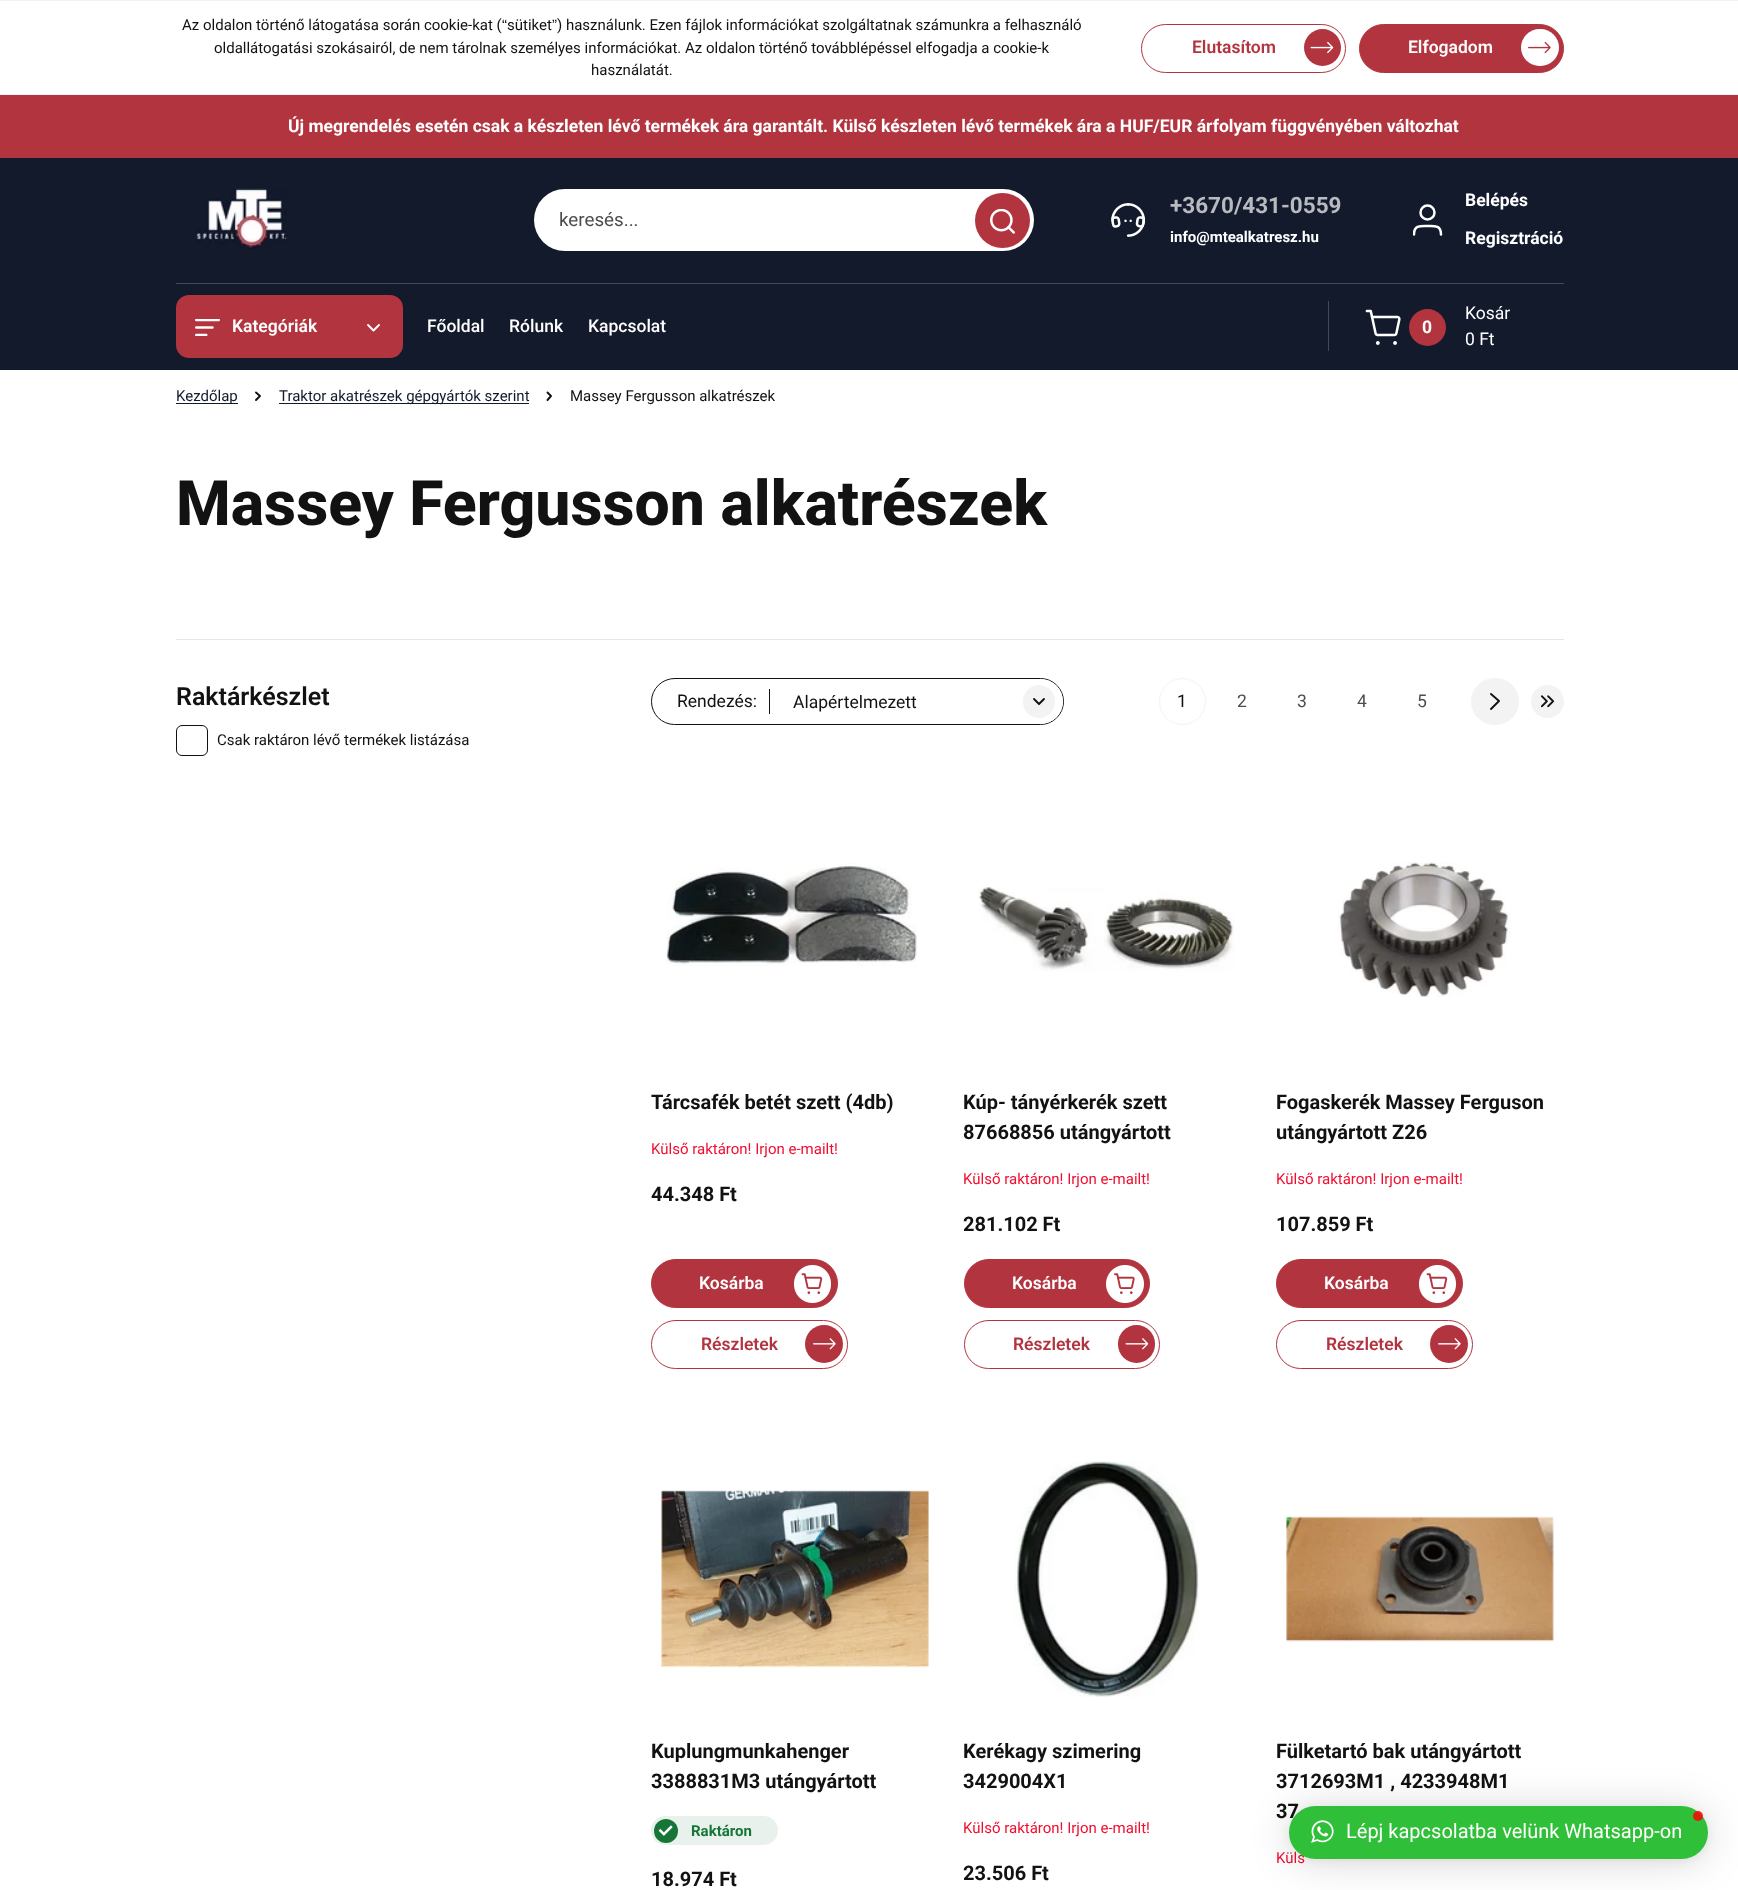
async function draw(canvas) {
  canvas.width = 1738;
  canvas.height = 1890;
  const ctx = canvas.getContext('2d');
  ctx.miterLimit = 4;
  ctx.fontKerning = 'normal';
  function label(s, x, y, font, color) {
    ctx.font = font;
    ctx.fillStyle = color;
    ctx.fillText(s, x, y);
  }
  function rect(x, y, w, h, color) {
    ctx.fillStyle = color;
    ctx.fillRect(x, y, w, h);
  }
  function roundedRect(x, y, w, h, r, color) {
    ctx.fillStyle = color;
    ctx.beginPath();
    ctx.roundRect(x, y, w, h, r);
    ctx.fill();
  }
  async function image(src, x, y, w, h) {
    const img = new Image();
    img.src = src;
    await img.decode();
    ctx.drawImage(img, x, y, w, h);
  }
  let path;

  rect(0, 0, 1738, 1890, '#fff');
  rect(0, 0, 1738, 1, '#f3f3f3');
  rect(0, 94, 1738, 1, '#f3f3f3');
  label('Az oldalon történő látogatása során cookie-kat (', 182, 30, '15px Roboto', '#121212');
  label('“', 502, 30, '15px Liberation Sans', '#121212');
  label('sütiket', 507, 30, '15px Roboto', '#121212');
  label('”', 552, 30, '15px Liberation Sans', '#121212');
  label(') használunk. Ezen fájlok információkat szolgáltatnak számunkra a felhasználó', 557, 30, '15px Roboto', '#121212');
  label('oldallátogatási szokásairól, de nem tárolnak személyes információkat. Az oldalon történő továbblépéssel elfogadja a cookie-k', 214, 53, '15px Roboto', '#121212');
  label('használatát.', 591, 75, '15px Roboto', '#121212');
  ctx.beginPath();
  ctx.roundRect(1141.5, 24.5, 204, 48, 24);
  ctx.strokeStyle = '#b2343e';
  ctx.stroke();
  label('Elutasítom', 1192, 53, '600 17.5px Roboto', '#b2343e');
  ctx.beginPath();
  ctx.arc(1322.5, 47.5, 18.5, 0, 2 * Math.PI);
  ctx.fill();
  await image('assets/img1.png', 1310, 41, 24, 13);
  ctx.beginPath();
  ctx.roundRect(1359.5, 24.5, 204, 48, 24);
  ctx.fill();
  ctx.stroke();
  label('Elfogadom', 1408, 53, '600 17.5px Roboto', '#fff');
  roundedRect(1521, 29, 38, 37, 18.5, '#fff');
  await image('assets/img2.png', 1528, 41, 23, 13);
  rect(0, 158, 1738, 212, '#121a2c');
  rect(0, 95, 1738, 63, '#b2343e');
  label('Új megrendelés esetén csak a készleten lévő termékek ára garantált. Külső készleten lévő termékek ára a HUF/EUR árfolyam függvényében változhat', 288, 132, 'bold 17.5px Roboto', '#fff');
  await image('assets/img3.png', 196, 188, 91, 61);
  roundedRect(534, 189, 500, 62, 31, '#fff');
  label('keresés...', 559, 226, '18.75px Roboto', '#4d4d4d');
  ctx.fillStyle = '#b2343e';
  ctx.beginPath();
  ctx.arc(1002.5, 220.5, 27.5, 0, 2 * Math.PI);
  ctx.fill();
  await image('assets/img4.png', 990, 209, 25, 25);
  await image('assets/img5.png', 1111, 203, 34, 34);
  label('+3670/431-0559', 1170, 213, 'bold 22.5px Roboto', '#b8bac0');
  label('info@mtealkatresz.hu', 1170, 242, 'bold 15px Roboto', '#fff');
  ctx.beginPath();
  ctx.arc(1427.5, 212.5, 7, 0, 2 * Math.PI);
  ctx.strokeStyle = '#fff';
  ctx.lineWidth = 2.5;
  ctx.stroke();
  ctx.save();
  ctx.beginPath();
  ctx.rect(1413, 204, 30, 32);
  ctx.clip();
  path = new Path2D('M1441 234.5C1441 225 1434.5 226 1427.5 226C1420.5 226 1414 225 1414 234.5');
  ctx.lineCap = 'round';
  ctx.lineJoin = 'round';
  ctx.stroke(path);
  ctx.restore();
  label('Belépés', 1465, 206, 'bold 17.5px Roboto', '#fff');
  label('Regisztráció', 1465, 244, 'bold 17.5px Roboto', '#fff');
  rect(176, 283, 1388, 1, '#414856');
  roundedRect(176, 295, 227, 63, 13, '#b2343e');
  await image('assets/img6.png', 195, 319, 25, 17);
  label('Kategóriák', 232, 332, '600 17.5px Roboto', '#fff');
  path = new Path2D('M379 325L373.5 330.5L368 325');
  ctx.lineWidth = 1.9;
  ctx.lineCap = 'round';
  ctx.lineJoin = 'round';
  ctx.stroke(path);
  label('Főoldal', 427, 332, '500 17.5px Roboto', '#fff');
  label('Rólunk', 509, 332, '500 17.5px Roboto', '#fff');
  label('Kapcsolat', 588, 332, '500 17.5px Roboto', '#fff');
  rect(1328, 301, 1, 50, '#414856');
  await image('assets/img7.png', 1365, 309, 36, 36);
  ctx.fillStyle = '#b2343e';
  ctx.beginPath();
  ctx.arc(1427.5, 327.5, 18.5, 0, 2 * Math.PI);
  ctx.fill();
  label('0', 1422, 333, 'bold 17.5px Roboto', '#fff');
  label('Kosár', 1465, 319, '17.5px Roboto', '#fff');
  label('0 Ft', 1465, 345, '17.5px Roboto', '#fff');
  rect(176, 403, 62, 1, '#121a2c');
  label('Kezdőlap', 176, 401, '15px Roboto', '#121a2c');
  path = new Path2D('M256 400L260 396L256 392.5');
  ctx.strokeStyle = '#121212';
  ctx.stroke(path);
  rect(279, 403, 250, 1, '#121a2c');
  label('Traktor akatrészek gépgyártók szerint', 279, 401, '15px Roboto', '#121a2c');
  path = new Path2D('M547.5 400L551 396L547.5 392.5');
  ctx.stroke(path);
  label('Massey Fergusson alkatrészek', 570, 401, '15px Roboto', '#121212');
  label('Massey Fergusson alkatrészek', 176, 525, '800 62.5px Roboto', '#121212');
  rect(176, 639, 1388, 1, '#e7e7e7');
  label('Raktárkészlet', 176, 705, '600 25px Roboto', '#121212');
  ctx.beginPath();
  ctx.roundRect(176.5, 725.5, 31, 30, 5.5);
  ctx.lineWidth = 1;
  ctx.lineJoin = 'miter';
  ctx.stroke();
  label('Csak raktáron lévő termékek listázása', 217, 745, '15px Roboto', '#121212');
  ctx.beginPath();
  ctx.roundRect(651.5, 678.5, 412, 46, 23);
  ctx.stroke();
  label('Rendezés:', 677, 707, '17.5px Roboto', '#121212');
  rect(769, 689, 1, 25, '#121212');
  roundedRect(778, 679, 285, 45, 22.5, '#fff');
  roundedRect(1023, 685, 32, 33, 16, '#f3f3f3');
  path = new Path2D('M1034 699L1039 704L1044 699');
  ctx.lineWidth = 1.9;
  ctx.lineJoin = 'round';
  ctx.stroke(path);
  label('Alapértelmezett', 793, 708, '17.5px Roboto', '#121212');
  ctx.beginPath();
  ctx.arc(1182.5, 701.5, 23, 0, 2 * Math.PI);
  ctx.strokeStyle = '#f3f3f3';
  ctx.lineWidth = 1;
  ctx.stroke();
  label('1', 1177, 707, '17.5px Roboto', '#121212');
  label('2', 1237, 707, '17.5px Roboto', '#4d4d4d');
  label('3', 1297, 707, '17.5px Roboto', '#4d4d4d');
  label('4', 1357, 707, '17.5px Roboto', '#4d4d4d');
  label('5', 1417, 707, '17.5px Roboto', '#4d4d4d');
  roundedRect(1471, 678, 48, 47, 23.5, '#f3f3f3');
  path = new Path2D('M1491 709L1499 701L1491 694');
  ctx.strokeStyle = '#121212';
  ctx.lineWidth = 1.9;
  ctx.stroke(path);
  ctx.beginPath();
  ctx.arc(1547.5, 701.5, 16.5, 0, 2 * Math.PI);
  ctx.fill();
  await image('assets/img8.png', 1540, 695, 15, 13);
  await image('assets/img9.png', 666, 863, 251, 103);
  label('Tárcsafék betét szett (4db)', 651, 1109, 'bold 20px Roboto', '#121212');
  label('Külső raktáron! Irjon e-mailt!', 651, 1154, '15px Roboto', '#f20e30');
  label('44.348 Ft', 651, 1201, 'bold 20px Roboto', '#121212');
  ctx.fillStyle = '#b2343e';
  ctx.beginPath();
  ctx.roundRect(651.5, 1259.5, 186, 48, 24);
  ctx.fill();
  ctx.strokeStyle = '#b2343e';
  ctx.lineWidth = 1;
  ctx.lineJoin = 'miter';
  ctx.stroke();
  label('Kosárba', 699, 1289, '600 17.5px Roboto', '#fff');
  await image('assets/img10.png', 794, 1265, 37, 38);
  ctx.beginPath();
  ctx.roundRect(651.5, 1320.5, 196, 48, 24);
  ctx.stroke();
  label('Részletek', 701, 1350, '600 17.5px Roboto', '#b2343e');
  ctx.beginPath();
  ctx.arc(824, 1344, 19, 0, 2 * Math.PI);
  ctx.fill();
  await image('assets/img11.png', 813, 1338, 23, 12);
  await image('assets/img12.png', 978, 886, 257, 85);
  label('Kúp- tányérkerék szett', 963, 1109, 'bold 20px Roboto', '#121212');
  label('87668856 utángyártott', 963, 1139, 'bold 20px Roboto', '#121212');
  label('Külső raktáron! Irjon e-mailt!', 963, 1184, '15px Roboto', '#f20e30');
  label('281.102 Ft', 963, 1231, 'bold 20px Roboto', '#121212');
  ctx.fillStyle = '#b2343e';
  ctx.beginPath();
  ctx.roundRect(964.5, 1259.5, 185, 48, 24);
  ctx.fill();
  ctx.stroke();
  label('Kosárba', 1012, 1289, '600 17.5px Roboto', '#fff');
  await image('assets/img13.png', 1106, 1265, 38, 38);
  ctx.beginPath();
  ctx.roundRect(964.5, 1320.5, 195, 48, 24);
  ctx.stroke();
  label('Részletek', 1013, 1350, '600 17.5px Roboto', '#b2343e');
  roundedRect(1118, 1325, 37, 38, 18.5, '#b2343e');
  await image('assets/img14.png', 1125, 1338, 24, 12);
  await image('assets/img15.png', 1338, 862, 173, 135);
  label('Fogaskerék Massey Ferguson', 1276, 1109, 'bold 20px Roboto', '#121212');
  label('utángyártott Z26', 1276, 1139, 'bold 20px Roboto', '#121212');
  label('Külső raktáron! Irjon e-mailt!', 1276, 1184, '15px Roboto', '#f20e30');
  label('107.859 Ft', 1276, 1231, 'bold 20px Roboto', '#121212');
  ctx.fillStyle = '#b2343e';
  ctx.beginPath();
  ctx.roundRect(1276.5, 1259.5, 186, 48, 24);
  ctx.fill();
  ctx.stroke();
  label('Kosárba', 1324, 1289, '600 17.5px Roboto', '#fff');
  await image('assets/img10.png', 1419, 1265, 37, 38);
  ctx.beginPath();
  ctx.roundRect(1276.5, 1320.5, 196, 48, 24);
  ctx.stroke();
  label('Részletek', 1326, 1350, '600 17.5px Roboto', '#b2343e');
  ctx.beginPath();
  ctx.arc(1449, 1344, 19, 0, 2 * Math.PI);
  ctx.fill();
  await image('assets/img11.png', 1438, 1338, 23, 12);
  await image('assets/img16.png', 661, 1490, 268, 178);
  label('Kuplungmunkahenger', 651, 1758, 'bold 20px Roboto', '#121212');
  label('3388831M3 utángyártott', 651, 1788, 'bold 20px Roboto', '#121212');
  roundedRect(651, 1816, 127, 29, 14.5, '#e8f1eb');
  ctx.fillStyle = '#177537';
  ctx.beginPath();
  ctx.arc(666, 1831, 12, 0, 2 * Math.PI);
  ctx.fill();
  await image('assets/img17.png', 658, 1825, 15, 11);
  label('Raktáron', 691, 1836, 'bold 15px Roboto', '#177537');
  label('18.974 Ft', 651, 1886, 'bold 20px Roboto', '#121212');
  await image('assets/img18.png', 1014, 1461, 185, 236);
  label('Kerékagy szimering', 963, 1758, 'bold 20px Roboto', '#121212');
  label('3429004X1', 963, 1788, 'bold 20px Roboto', '#121212');
  label('Külső raktáron! Irjon e-mailt!', 963, 1833, '15px Roboto', '#f20e30');
  label('23.506 Ft', 963, 1880, 'bold 20px Roboto', '#121212');
  await image('assets/img19.png', 1286, 1516, 268, 126);
  label('Fülketartó bak utángyártott', 1276, 1758, 'bold 20px Roboto', '#121212');
  label('3712693M1 , 4233948M1', 1276, 1788, 'bold 20px Roboto', '#121212');
  label('37', 1276, 1818, 'bold 20px Roboto', '#121212');
  label('Küls', 1276, 1863, '15px Roboto', '#f20e30');
  ctx.fillStyle = '#00000029';
  ctx.filter = 'blur(20px)';
  ctx.beginPath();
  ctx.roundRect(1289, 1809, 419, 52, 26);
  ctx.fill();
  ctx.filter = 'none';
  ctx.fillStyle = '#0000000f';
  ctx.filter = 'blur(4px)';
  ctx.beginPath();
  ctx.roundRect(1289, 1808, 419, 52, 26);
  ctx.fill();
  ctx.filter = 'none';
  roundedRect(1289, 1806, 419, 53, 26.5, '#30bf39');
  ctx.fillStyle = '#ff0000d9';
  ctx.beginPath();
  ctx.arc(1698, 1816, 5, 0, 2 * Math.PI);
  ctx.fill();
  await image('assets/img20.png', 1311, 1820, 23, 23);
  label('Lépj kapcsolatba velünk Whatsapp-on', 1346, 1838, '20px Roboto', '#fff');
}

draw(document.querySelector('canvas'));
